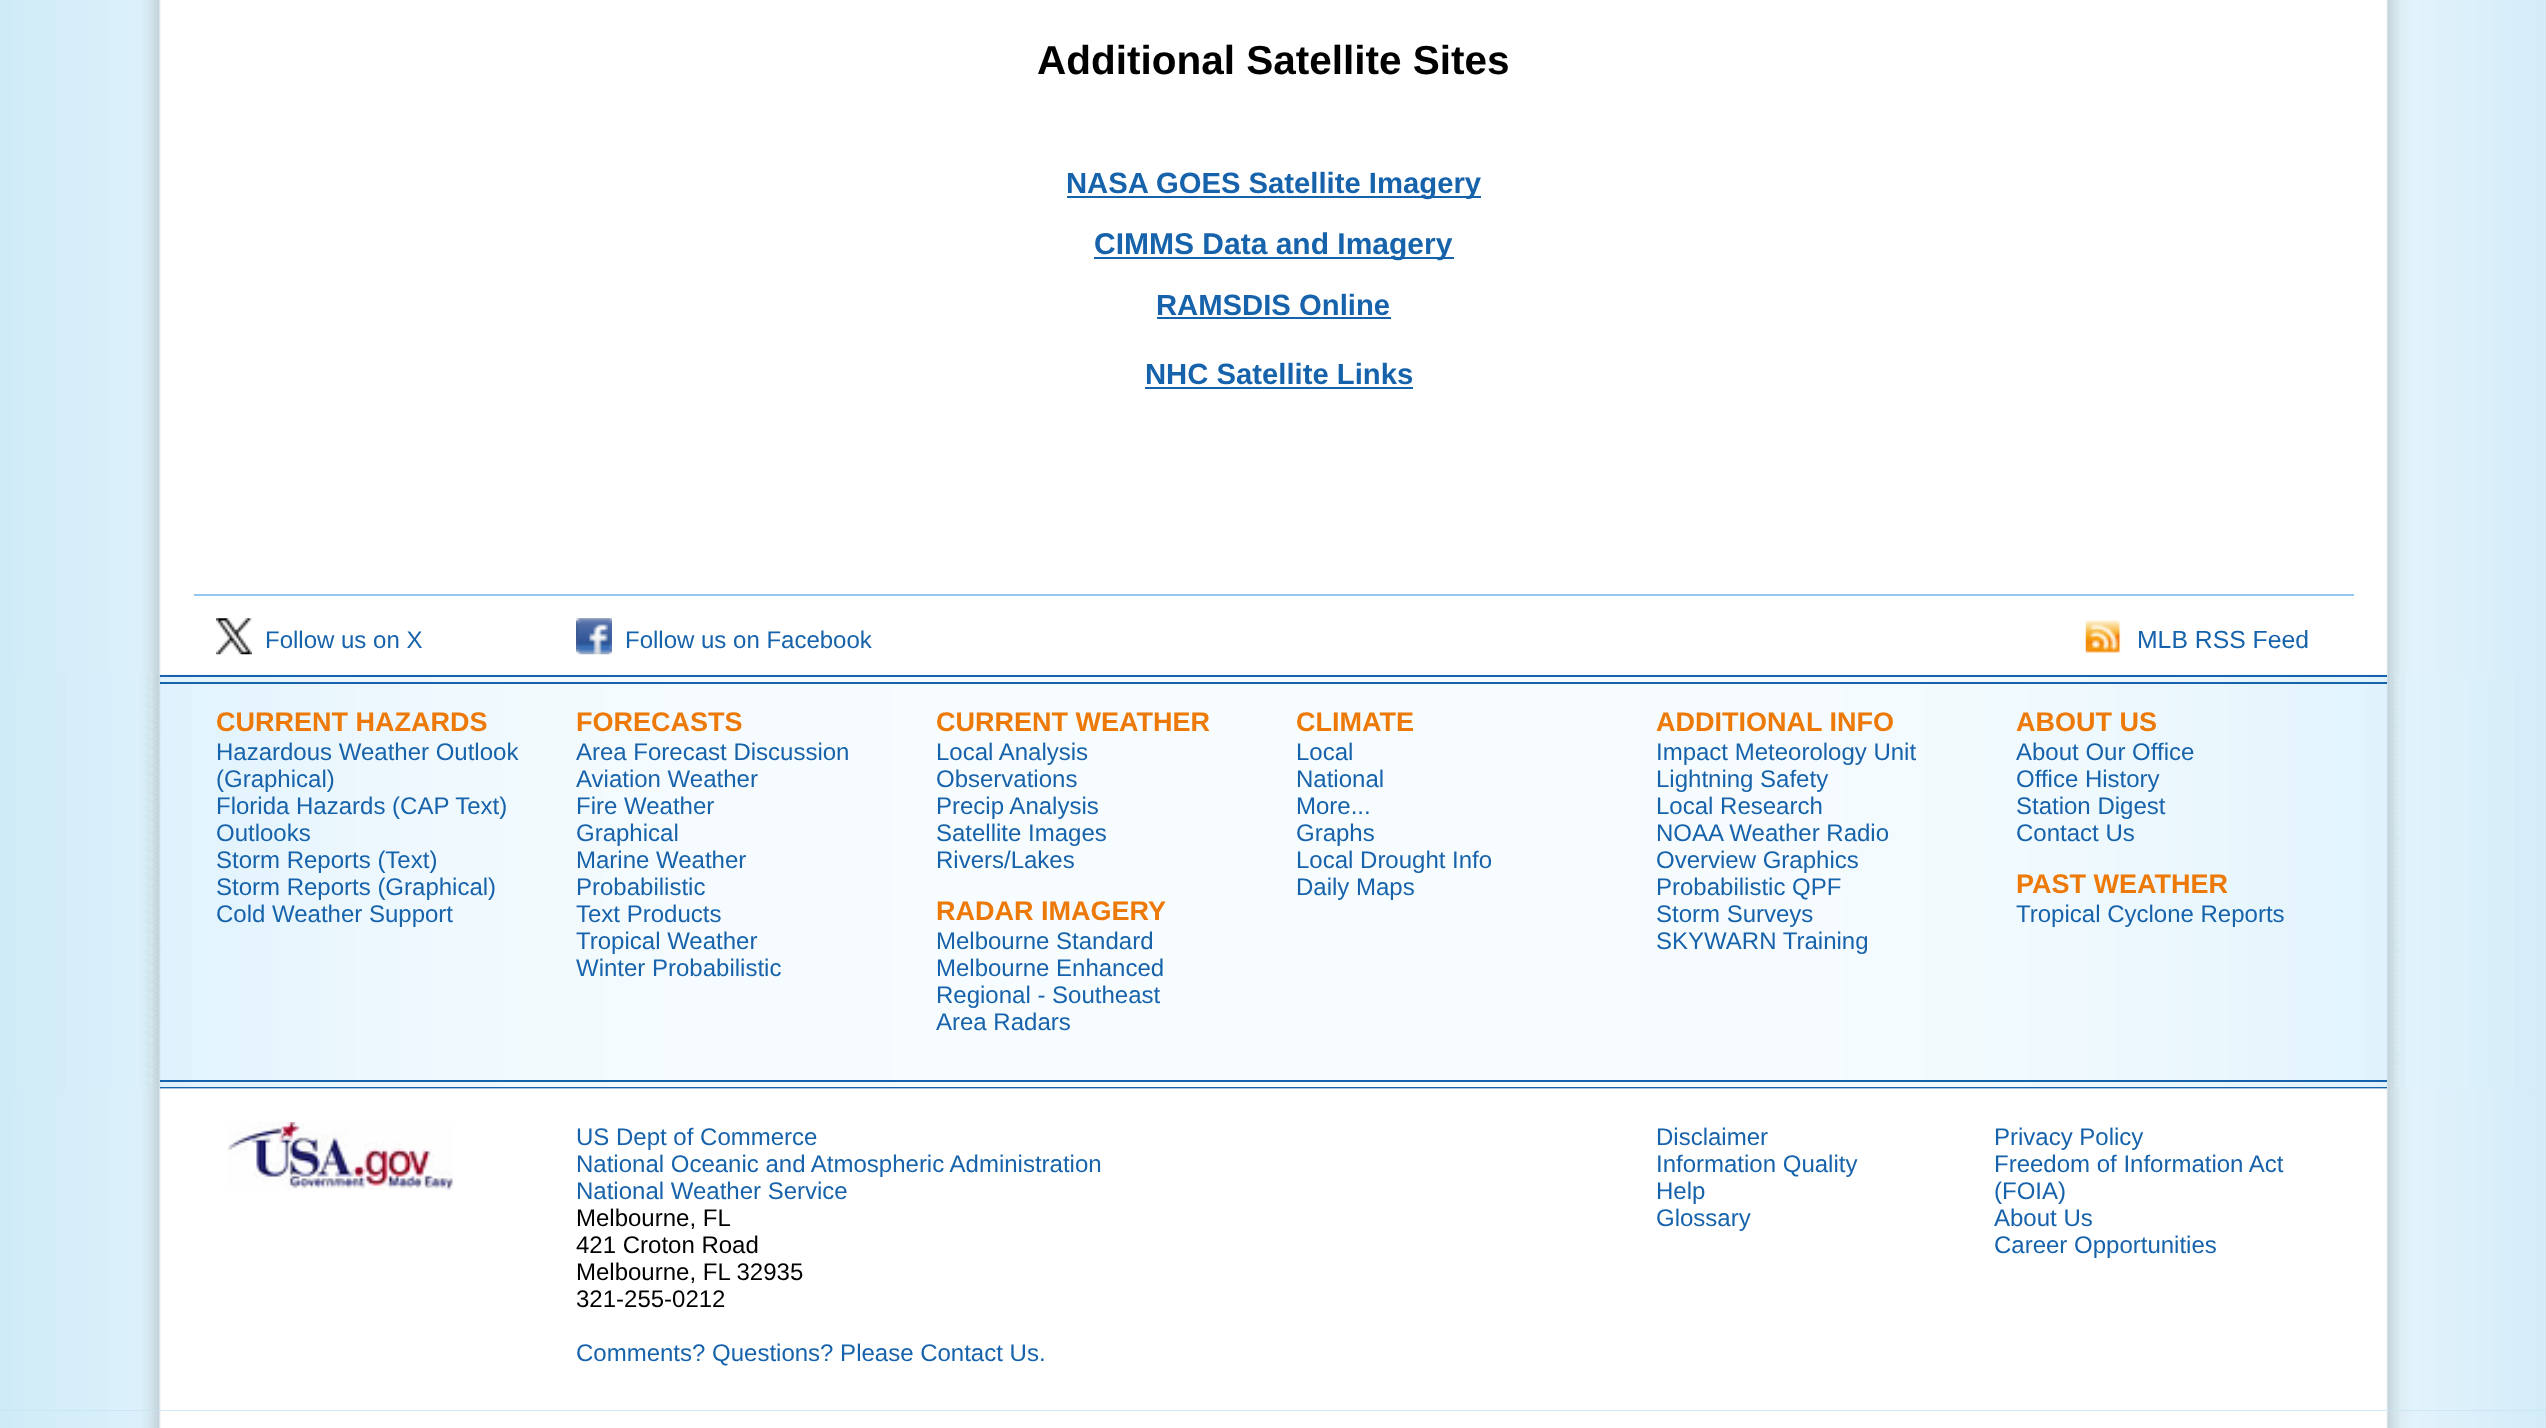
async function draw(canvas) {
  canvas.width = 2546;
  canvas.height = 1428;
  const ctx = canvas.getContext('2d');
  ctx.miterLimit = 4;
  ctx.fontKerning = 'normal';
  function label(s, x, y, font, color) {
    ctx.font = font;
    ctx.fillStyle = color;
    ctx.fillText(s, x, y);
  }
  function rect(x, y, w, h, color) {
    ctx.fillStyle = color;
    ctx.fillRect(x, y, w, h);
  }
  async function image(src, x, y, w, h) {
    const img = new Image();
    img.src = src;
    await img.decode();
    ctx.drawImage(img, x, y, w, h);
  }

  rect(0, 0, 2546, 1428, '#fff');
  await image('assets/img1.png', 0, 674, 2546, 415);
  await image('assets/img2.png', 0, 0, 2546, 675);
  label('Additional Satellite Sites', 1037, 74, 'bold 40.5px Liberation Sans', '#000');
  rect(1067, 196, 414, 2, '#1763ab');
  label('NASA GOES Satellite Imagery', 1066, 193, 'bold 29.25px Liberation Sans', '#1763ab');
  rect(1094, 257, 360, 2, '#1763ab');
  label('CIMMS Data and Imagery', 1094, 254, 'bold 30px Liberation Sans', '#1763ab');
  label('RAMSDIS Online', 1156, 315, 'bold 29.25px Liberation Sans', '#1763ab');
  rect(1157, 317, 234, 2, '#1763ab');
  label('NHC Satellite Links', 1145, 384, 'bold 29.25px Liberation Sans', '#1763ab');
  rect(1145, 387, 268, 2, '#1763ab');
  rect(194, 594, 2160, 2, '#94c6ef');
  await image('assets/img3.png', 216, 618, 36, 37);
  label('Follow us on X', 265, 648, '24px Liberation Sans', '#1763ab');
  await image('assets/img4.png', 576, 618, 36, 37);
  label('Follow us on Facebook', 625, 648, '24px Liberation Sans', '#1763ab');
  await image('assets/img5.png', 2085, 620, 36, 33);
  label('MLB RSS Feed', 2137, 648, '24.75px Liberation Sans', '#1763ab');
  await image('assets/img6.png', 0, 674, 2546, 415);
  rect(160, 675, 2227, 2, '#1763ab');
  rect(160, 682, 2227, 2, '#1763ab');
  rect(160, 1080, 2227, 2, '#1763ab');
  rect(160, 1087, 2227, 2, '#1763ab');
  label('CURRENT HAZARDS', 216, 731, 'bold 27px Liberation Sans', '#ed7a08');
  label('Hazardous Weather Outlook', 216, 760, '24px Liberation Sans', '#1763ab');
  label('(Graphical)', 216, 787, '24px Liberation Sans', '#1763ab');
  label('Florida Hazards (CAP Text)', 216, 814, '24px Liberation Sans', '#1763ab');
  label('Outlooks', 216, 841, '24px Liberation Sans', '#1763ab');
  label('Storm Reports (Text)', 216, 868, '24px Liberation Sans', '#1763ab');
  label('Storm Reports (Graphical)', 216, 895, '24px Liberation Sans', '#1763ab');
  label('Cold Weather Support', 216, 922, '24px Liberation Sans', '#1763ab');
  label('FORECASTS', 576, 731, 'bold 27px Liberation Sans', '#ed7a08');
  label('Area Forecast Discussion', 576, 760, '24px Liberation Sans', '#1763ab');
  label('Aviation Weather', 576, 787, '24px Liberation Sans', '#1763ab');
  label('Fire Weather', 576, 814, '24px Liberation Sans', '#1763ab');
  label('Graphical', 576, 841, '24px Liberation Sans', '#1763ab');
  label('Marine Weather', 576, 868, '24px Liberation Sans', '#1763ab');
  label('Probabilistic', 576, 895, '24px Liberation Sans', '#1763ab');
  label('Text Products', 576, 922, '24px Liberation Sans', '#1763ab');
  label('Tropical Weather', 576, 949, '24px Liberation Sans', '#1763ab');
  label('Winter Probabilistic', 576, 976, '24px Liberation Sans', '#1763ab');
  label('CURRENT WEATHER', 936, 731, 'bold 27px Liberation Sans', '#ed7a08');
  label('Local Analysis', 936, 760, '24px Liberation Sans', '#1763ab');
  label('Observations', 936, 787, '24px Liberation Sans', '#1763ab');
  label('Precip Analysis', 936, 814, '24px Liberation Sans', '#1763ab');
  label('Satellite Images', 936, 841, '24px Liberation Sans', '#1763ab');
  label('Rivers/Lakes', 936, 868, '24px Liberation Sans', '#1763ab');
  label('RADAR IMAGERY', 936, 920, 'bold 27px Liberation Sans', '#ed7a08');
  label('Melbourne Standard', 936, 949, '24px Liberation Sans', '#1763ab');
  label('Melbourne Enhanced', 936, 976, '24px Liberation Sans', '#1763ab');
  label('Regional - Southeast', 936, 1003, '24px Liberation Sans', '#1763ab');
  label('Area Radars', 936, 1030, '24px Liberation Sans', '#1763ab');
  label('CLIMATE', 1296, 731, 'bold 27px Liberation Sans', '#ed7a08');
  label('Local', 1296, 760, '24px Liberation Sans', '#1763ab');
  label('National', 1296, 787, '24px Liberation Sans', '#1763ab');
  label('More...', 1296, 814, '24px Liberation Sans', '#1763ab');
  label('Graphs', 1296, 841, '24px Liberation Sans', '#1763ab');
  label('Local Drought Info', 1296, 868, '24px Liberation Sans', '#1763ab');
  label('Daily Maps', 1296, 895, '24px Liberation Sans', '#1763ab');
  label('ADDITIONAL INFO', 1656, 731, 'bold 27px Liberation Sans', '#ed7a08');
  label('Impact Meteorology Unit', 1656, 760, '24px Liberation Sans', '#1763ab');
  label('Lightning Safety', 1656, 787, '24px Liberation Sans', '#1763ab');
  label('Local Research', 1656, 814, '24px Liberation Sans', '#1763ab');
  label('NOAA Weather Radio', 1656, 841, '24px Liberation Sans', '#1763ab');
  label('Overview Graphics', 1656, 868, '24px Liberation Sans', '#1763ab');
  label('Probabilistic QPF', 1656, 895, '24px Liberation Sans', '#1763ab');
  label('Storm Surveys', 1656, 922, '24px Liberation Sans', '#1763ab');
  label('SKYWARN Training', 1656, 949, '24px Liberation Sans', '#1763ab');
  label('ABOUT US', 2016, 731, 'bold 27px Liberation Sans', '#ed7a08');
  label('About Our Office', 2016, 760, '24px Liberation Sans', '#1763ab');
  label('Office History', 2016, 787, '24px Liberation Sans', '#1763ab');
  label('Station Digest', 2016, 814, '24px Liberation Sans', '#1763ab');
  label('Contact Us', 2016, 841, '24px Liberation Sans', '#1763ab');
  label('PAST WEATHER', 2016, 893, 'bold 27px Liberation Sans', '#ed7a08');
  label('Tropical Cyclone Reports', 2016, 922, '24px Liberation Sans', '#1763ab');
  await image('assets/img7.png', 0, 1088, 2546, 340);
  rect(0, 1410, 2546, 1, '#c5e5f5');
  await image('assets/img8.png', 0, 1088, 2546, 323);
  await image('assets/img9.png', 227, 1122, 226, 68);
  label('US Dept of Commerce', 576, 1145, '24px Liberation Sans', '#1763ab');
  label('National Oceanic and Atmospheric Administration', 576, 1172, '24px Liberation Sans', '#1763ab');
  label('National Weather Service', 576, 1199, '24px Liberation Sans', '#1763ab');
  label('Melbourne, FL', 576, 1226, '24px Liberation Sans', '#000');
  label('421 Croton Road', 576, 1253, '24px Liberation Sans', '#000');
  label('Melbourne, FL 32935', 576, 1280, '24px Liberation Sans', '#000');
  label('321-255-0212', 576, 1307, '24px Liberation Sans', '#000');
  label('Comments? Questions? Please Contact Us.', 576, 1361, '24px Liberation Sans', '#1763ab');
  label('Disclaimer', 1656, 1145, '24px Liberation Sans', '#1763ab');
  label('Information Quality', 1656, 1172, '24px Liberation Sans', '#1763ab');
  label('Help', 1656, 1199, '24px Liberation Sans', '#1763ab');
  label('Glossary', 1656, 1226, '24px Liberation Sans', '#1763ab');
  label('Privacy Policy', 1994, 1145, '24px Liberation Sans', '#1763ab');
  label('Freedom of Information Act', 1994, 1172, '24px Liberation Sans', '#1763ab');
  label('(FOIA)', 1994, 1199, '24px Liberation Sans', '#1763ab');
  label('About Us', 1994, 1226, '24px Liberation Sans', '#1763ab');
  label('Career Opportunities', 1994, 1253, '24px Liberation Sans', '#1763ab');
}

draw(document.querySelector('canvas'));
